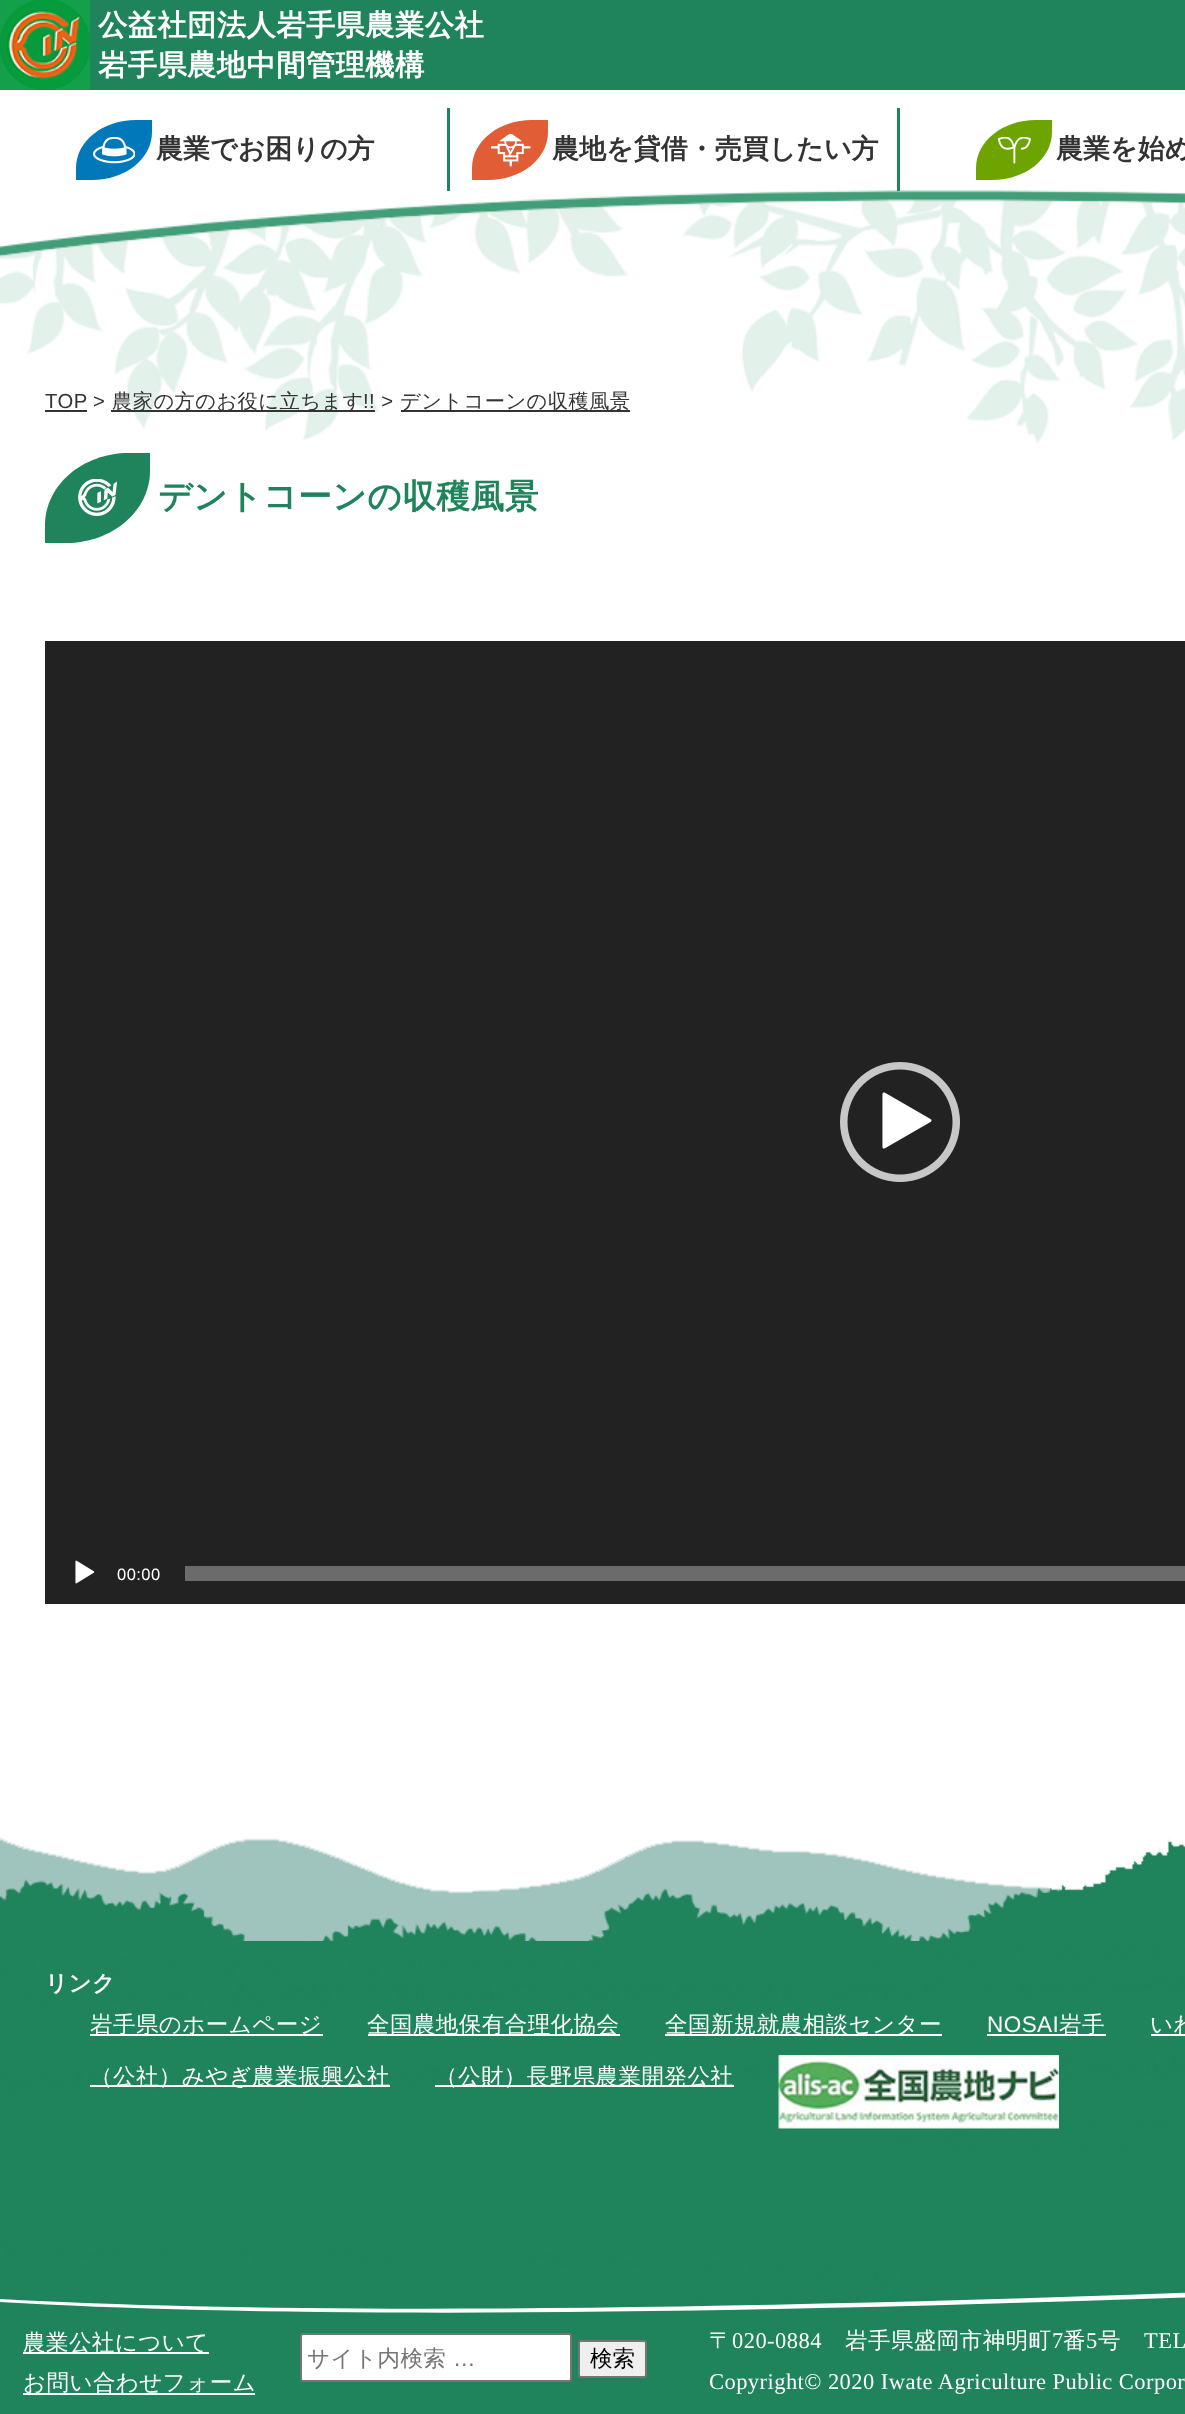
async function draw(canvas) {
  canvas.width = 1185;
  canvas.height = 2414;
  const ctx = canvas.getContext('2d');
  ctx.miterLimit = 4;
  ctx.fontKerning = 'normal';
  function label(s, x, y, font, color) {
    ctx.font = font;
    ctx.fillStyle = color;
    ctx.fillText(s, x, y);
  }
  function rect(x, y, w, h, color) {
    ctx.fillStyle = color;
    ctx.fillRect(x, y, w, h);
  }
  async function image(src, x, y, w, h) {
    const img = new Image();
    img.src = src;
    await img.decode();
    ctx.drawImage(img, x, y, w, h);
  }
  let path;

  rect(0, 0, 1185, 2414, '#fff');
  await image('assets/img1.png', 0, 190, 1185, 253);
  rect(0, 0, 1185, 90, '#1f835b');
  await image('assets/img2.png', 0, 0, 90, 90);
  ctx.letterSpacing = '0.45px';
  label('公益社団法人岩手県農業公社', 98, 35, 'bold 29.25px WenQuanYi Zen Hei', '#fff');
  label('岩手県農地中間管理機構', 98, 75, 'bold 29.25px WenQuanYi Zen Hei', '#fff');
  rect(447, 108, 3, 83, '#1f835b');
  ctx.fillStyle = '#0078b9';
  path = new Path2D('M136 120H152V132C152 159 125 180 92 180H76V168C76 141 103 120 136 120Z');
  ctx.fill(path);
  await image('assets/img3.png', 93, 137, 42, 27);
  ctx.letterSpacing = '0px';
  label('農業でお困りの方', 156, 158, 'bold 27px WenQuanYi Zen Hei', '#333');
  rect(897, 108, 3, 83, '#1f835b');
  ctx.fillStyle = '#e05d36';
  path = new Path2D('M532 120H548V132C548 159 521 180 488 180H472V168C472 141 499 120 532 120Z');
  ctx.fill(path);
  await image('assets/img4.png', 491, 134, 40, 33);
  label('農地を貸借・売買したい方', 552, 158, 'bold 27px WenQuanYi Zen Hei', '#333');
  ctx.fillStyle = '#6da400';
  path = new Path2D('M1036 120H1052V132C1052 159 1025 180 992 180H976V168C976 141 1003 120 1036 120Z');
  ctx.fill(path);
  await image('assets/img5.png', 998, 137, 33, 27);
  label('農業を始め', 1056, 158, 'bold 27px WenQuanYi Zen Hei', '#333');
  ctx.letterSpacing = '0.45px';
  label('TOP', 45, 408, '20.25px Liberation Sans', '#333');
  rect(45, 410, 42, 2, '#333');
  label('>', 93, 408, '20.25px Liberation Sans', '#333');
  rect(111, 410, 264, 2, '#333');
  label('農家の方のお役に立ちます', 112, 408, '500 20.25px WenQuanYi Zen Hei', '#333');
  label('!! >', 363, 408, '20.25px Liberation Sans', '#333');
  rect(401, 410, 229, 2, '#333');
  label('デントコーンの収穫風景', 400, 408, '500 20.25px WenQuanYi Zen Hei', '#333');
  ctx.fillStyle = '#1f835b';
  path = new Path2D('M129 453H150V471C150 511 112 543 66 543H45V525C45 485 83 453 129 453Z');
  ctx.fill(path);
  await image('assets/img6.png', 78, 479, 39, 37);
  label('デントコーンの収穫風景', 158, 508, 'bold 33.75px WenQuanYi Zen Hei', '#1f835b');
  rect(45, 641, 1140, 963, '#222');
  await image('assets/img7.png', 840, 1062, 120, 120);
  await image('assets/img8.png', 75, 1560, 20, 24);
  label('00:00', 117, 1580, '16.5px Liberation Sans', '#fff');
  rect(185, 1566, 1000, 15, '#6b6b6b');
  await image('assets/img9.png', 0, 1837, 1185, 472);
  rect(242, 1941, 687, 19, '#1f835b');
  label('リンク', 45, 1991, 'bold 22.5px WenQuanYi Zen Hei', '#fff');
  rect(90, 2034, 233, 2, '#fff');
  label('岩手県のホームページ', 90, 2032, '500 22.5px WenQuanYi Zen Hei', '#fff');
  rect(368, 2034, 252, 2, '#fff');
  label('全国農地保有合理化協会', 367, 2032, '500 22.5px WenQuanYi Zen Hei', '#fff');
  rect(665, 2034, 277, 2, '#fff');
  label('全国新規就農相談センター', 665, 2032, '500 22.5px WenQuanYi Zen Hei', '#fff');
  label('NOSAI', 987, 2032, '22.5px Liberation Sans', '#fff');
  rect(987, 2034, 119, 2, '#fff');
  label('岩手', 1059, 2032, '500 22.5px WenQuanYi Zen Hei', '#fff');
  rect(1151, 2034, 34, 2, '#fff');
  label('いわ', 1150, 2032, '500 22.5px WenQuanYi Zen Hei', '#fff');
  rect(90, 2085, 300, 2, '#fff');
  label('（公社）みやぎ農業振興公社', 90, 2084, '500 22.5px WenQuanYi Zen Hei', '#fff');
  rect(435, 2085, 299, 2, '#fff');
  label('（公財）長野県農業開発公社', 435, 2084, '500 22.5px WenQuanYi Zen Hei', '#fff');
  await image('assets/img10.png', 778, 2055, 281, 74);
  rect(0, 2310, 1185, 104, '#1f835b');
  ctx.fillStyle = '#fff';
  path = new Path2D('M0 2308V2299C360 2319 960 2308 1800 2266V2335Z');
  ctx.fill(path);
  ctx.fillStyle = '#1f835b';
  path = new Path2D('M0 2310V2302C360 2323 960 2313 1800 2271V2342Z');
  ctx.fill(path);
  rect(23, 2352, 186, 2, '#fff');
  label('農業公社について', 23, 2350, '500 22.5px WenQuanYi Zen Hei', '#fff');
  rect(23, 2393, 232, 2, '#fff');
  label('お問い合わせフォーム', 23, 2390, '500 22.5px WenQuanYi Zen Hei', '#fff');
  ctx.beginPath();
  ctx.roundRect(301, 2334, 270, 47, 2);
  ctx.fill();
  ctx.strokeStyle = '#767676';
  ctx.lineWidth = 2;
  ctx.stroke();
  label('サイト内検索', 307, 2366, '500 22.5px WenQuanYi Zen Hei', '#757575');
  label('…', 453, 2366, '22.5px Liberation Sans', '#757575');
  ctx.fillStyle = '#efefef';
  ctx.beginPath();
  ctx.roundRect(579, 2341, 67, 36, 2);
  ctx.fill();
  ctx.stroke();
  ctx.letterSpacing = '0px';
  label('検索', 590, 2366, '500 22.5px WenQuanYi Zen Hei', '#000');
  ctx.letterSpacing = '0.45px';
  label('〒', 709, 2348, '500 22.5px WenQuanYi Zen Hei', '#fff');
  label('020-0884', 732, 2348, '22.5px Liberation Serif', '#fff');
  label('岩手県盛岡市神明町', 845, 2348, '500 22.5px WenQuanYi Zen Hei', '#fff');
  label('7', 1052, 2348, '22.5px Liberation Serif', '#fff');
  label('番', 1063, 2348, '500 22.5px WenQuanYi Zen Hei', '#fff');
  label('5', 1086, 2348, '22.5px Liberation Serif', '#fff');
  label('号', 1098, 2348, '500 22.5px WenQuanYi Zen Hei', '#fff');
  label('TEL', 1144, 2348, '22.5px Liberation Serif', '#fff');
  label('Copyright© 2020 Iwate Agriculture Public Corpor', 709, 2389, '22.5px Liberation Serif', '#fff');
}

draw(document.querySelector('canvas'));
